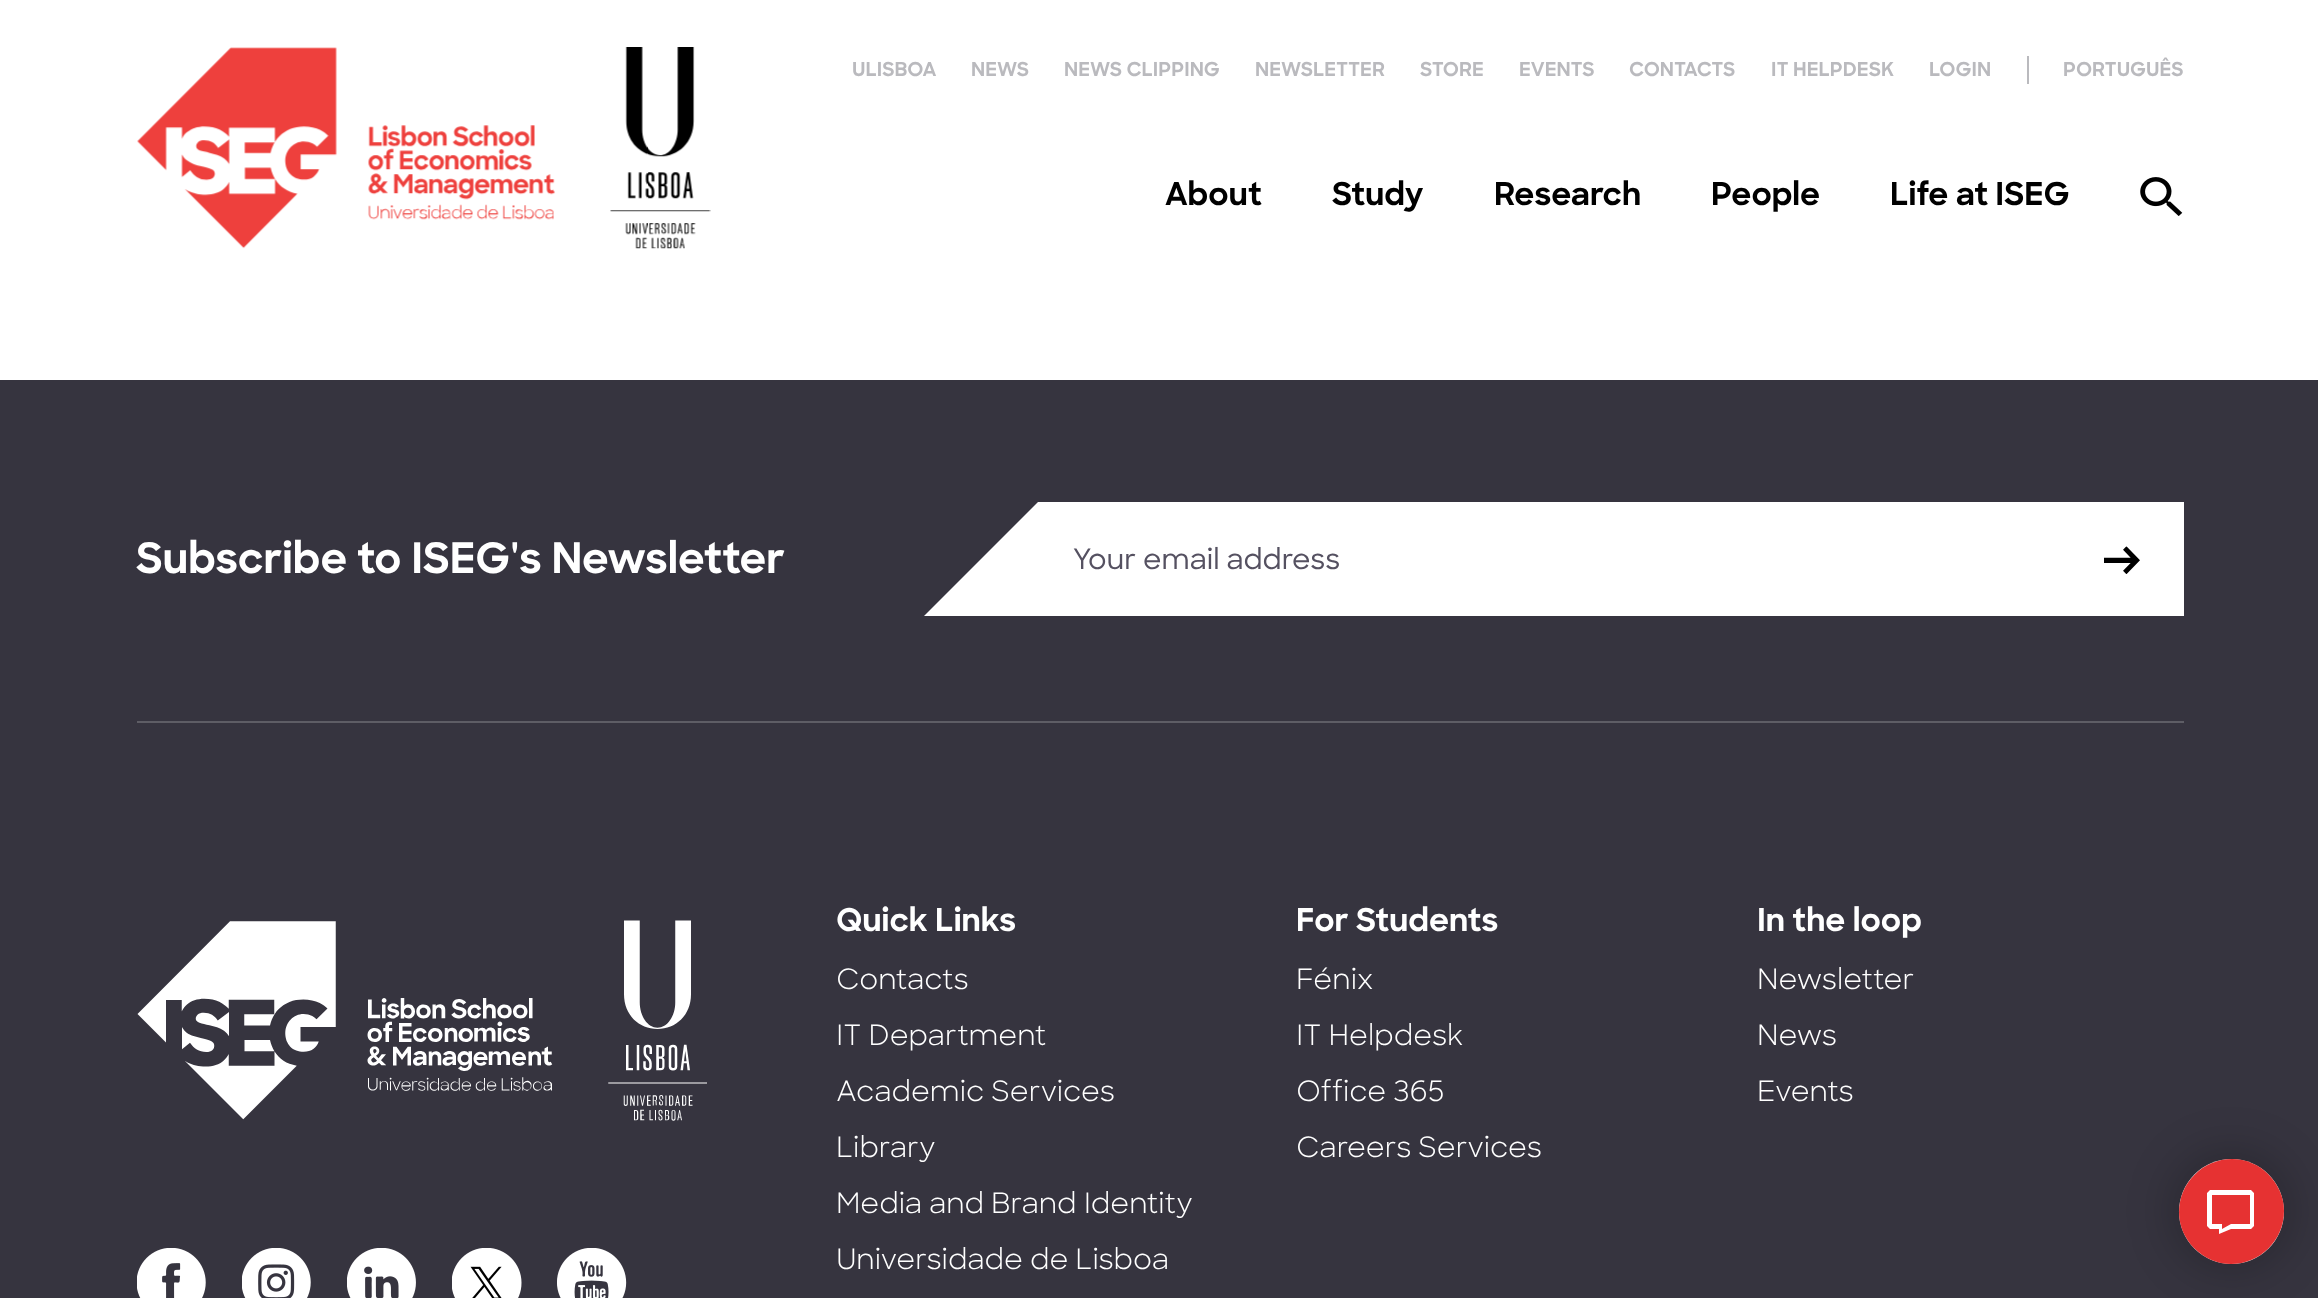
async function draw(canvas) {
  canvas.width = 2318;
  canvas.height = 1298;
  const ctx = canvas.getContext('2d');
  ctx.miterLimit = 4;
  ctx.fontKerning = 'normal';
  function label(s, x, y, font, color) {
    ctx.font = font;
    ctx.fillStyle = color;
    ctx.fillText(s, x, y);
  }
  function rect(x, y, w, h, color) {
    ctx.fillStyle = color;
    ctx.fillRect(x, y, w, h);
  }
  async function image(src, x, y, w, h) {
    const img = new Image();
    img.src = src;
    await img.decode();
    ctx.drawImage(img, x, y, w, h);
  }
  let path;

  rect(0, 0, 2318, 1298, '#fff');
  await image('assets/img1.png', 137, 47, 574, 202);
  label('ULISBOA', 852, 76, 'bold 19.25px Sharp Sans', '#bababe');
  label('NEWS', 971, 76, 'bold 19.25px Sharp Sans', '#bababe');
  label('NEWS CLIPPING', 1064, 76, 'bold 19.25px Sharp Sans', '#bababe');
  label('NEWSLETTER', 1255, 76, 'bold 19.25px Sharp Sans', '#bababe');
  label('STORE', 1420, 76, 'bold 19.25px Sharp Sans', '#bababe');
  label('EVENTS', 1519, 76, 'bold 19.25px Sharp Sans', '#bababe');
  label('CONTACTS', 1629, 76, 'bold 19.25px Sharp Sans', '#bababe');
  label('IT HELPDESK', 1771, 76, 'bold 19.25px Sharp Sans', '#bababe');
  label('LOGIN', 1929, 76, 'bold 19.25px Sharp Sans', '#bababe');
  rect(2027, 56, 2, 28, '#bababe');
  label('PORTUGUÊS', 2063, 76, 'bold 19.25px Sharp Sans', '#bababe');
  label('About', 1165, 205, 'bold 31.5px Sharp Sans', '#000');
  label('Study', 1332, 205, 'bold 31.5px Sharp Sans', '#000');
  label('Research', 1494, 205, 'bold 31.5px Sharp Sans', '#000');
  label('People', 1711, 205, 'bold 31.5px Sharp Sans', '#000');
  label('Life at ISEG', 1890, 205, 'bold 31.5px Sharp Sans', '#000');
  await image('assets/img2.png', 2140, 177, 43, 39);
  rect(0, 380, 2318, 918, '#36343f');
  rect(137, 721, 2047, 2, '#5e5d65');
  label('Subscribe to ISEG\'s Newsletter', 136, 573, 'bold 42px Sharp Sans', '#fff');
  path = new Path2D('M924 616H1038V502Z');
  ctx.fill(path, 'evenodd');
  rect(1038, 502, 1146, 114, '#fff');
  label('Your email address', 1073, 569, '500 28px Sharp Sans', '#555161');
  await image('assets/img3.png', 2104, 546, 36, 28);
  await image('assets/img4.png', 137, 920, 570, 201);
  await image('assets/img5.png', 137, 1248, 69, 50);
  await image('assets/img6.png', 242, 1248, 69, 50);
  await image('assets/img7.png', 347, 1248, 69, 50);
  await image('assets/img8.png', 452, 1248, 70, 50);
  await image('assets/img9.png', 557, 1248, 70, 50);
  label('Quick Links', 836, 931, 'bold 31.5px Sharp Sans', '#fff');
  label('Contacts', 836, 989, '28px Sharp Sans', '#fff');
  label('IT Department', 836, 1045, '28px Sharp Sans', '#fff');
  label('Academic Services', 836, 1101, '28px Sharp Sans', '#fff');
  label('Library', 836, 1157, '28px Sharp Sans', '#fff');
  label('Media and Brand Identity', 836, 1213, '28px Sharp Sans', '#fff');
  label('Universidade de Lisboa', 836, 1269, '28px Sharp Sans', '#fff');
  label('For Students', 1296, 931, 'bold 31.5px Sharp Sans', '#fff');
  label('Fénix', 1296, 989, '28px Sharp Sans', '#fff');
  label('IT Helpdesk', 1296, 1045, '28px Sharp Sans', '#fff');
  label('Office 365', 1296, 1101, '28px Sharp Sans', '#fff');
  label('Careers Services', 1296, 1157, '28px Sharp Sans', '#fff');
  label('In the loop', 1757, 931, 'bold 31.5px Sharp Sans', '#fff');
  label('Newsletter', 1757, 989, '28px Sharp Sans', '#fff');
  label('News', 1757, 1045, '28px Sharp Sans', '#fff');
  label('Events', 1757, 1101, '28px Sharp Sans', '#fff');
  ctx.fillStyle = '#00000033';
  ctx.filter = 'blur(22px)';
  ctx.beginPath();
  ctx.roundRect(2170, 1150, 123, 122, 61);
  ctx.fill();
  ctx.filter = 'none';
  ctx.fillStyle = '#efefef';
  ctx.beginPath();
  ctx.arc(2231.5, 1211.5, 52.5, 0, 2 * Math.PI);
  ctx.fill();
  ctx.fillStyle = '#e63232';
  path = new Path2D('M2232 1159C2246 1159 2259 1165 2268 1174C2278 1184 2284 1197 2284 1211C2284 1240 2260 1264 2231 1264C2217 1264 2204 1258 2194 1248C2185 1239 2179 1226 2179 1212C2179 1183 2203 1159 2232 1159Z');
  ctx.fill(path);
  ctx.fillStyle = '#fff';
  path = new Path2D('M2251 1190H2210L2207 1193V1226L2210 1229H2219V1234L2231 1229H2251L2254 1226V1193ZM2250 1224H2231L2222 1229V1224H2212V1195H2250Z');
  ctx.fill(path);
}

draw(document.querySelector('canvas'));
